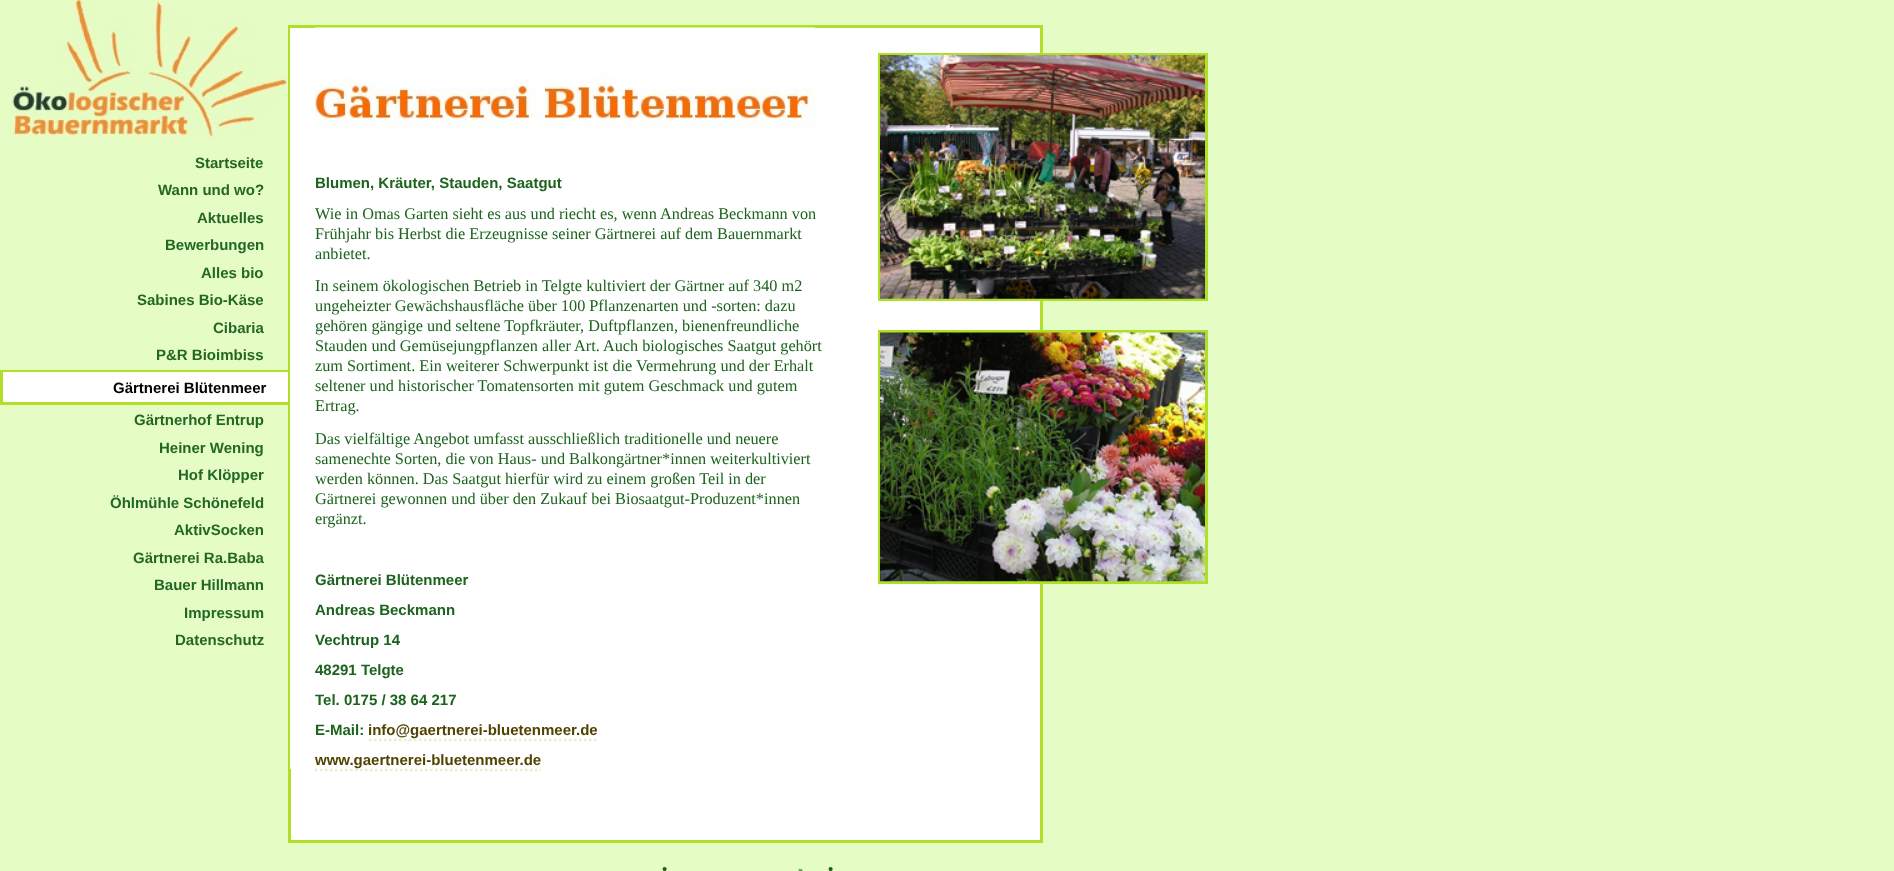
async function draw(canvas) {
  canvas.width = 1894;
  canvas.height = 871;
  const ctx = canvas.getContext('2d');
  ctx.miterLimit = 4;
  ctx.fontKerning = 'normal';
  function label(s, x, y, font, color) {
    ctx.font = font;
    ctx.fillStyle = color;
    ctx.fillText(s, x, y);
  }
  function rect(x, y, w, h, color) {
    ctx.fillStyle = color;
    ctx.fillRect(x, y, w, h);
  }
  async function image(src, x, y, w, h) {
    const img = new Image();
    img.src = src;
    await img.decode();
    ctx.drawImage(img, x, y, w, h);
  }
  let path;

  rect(0, 0, 1894, 871, '#e6fcc5');
  await image('assets/img1.png', 12, 0, 276, 138);
  label('Startseite', 195, 168, 'bold 15px Liberation Sans', '#226725');
  label('Wann und wo?', 158, 195, 'bold 15px Liberation Sans', '#226725');
  label('Aktuelles', 197, 223, 'bold 15px Liberation Sans', '#226725');
  label('Bewerbungen', 165, 250, 'bold 15px Liberation Sans', '#226725');
  label('Alles bio', 201, 278, 'bold 15px Liberation Sans', '#226725');
  label('Sabines Bio-Käse', 137, 305, 'bold 15px Liberation Sans', '#226725');
  label('Cibaria', 213, 333, 'bold 15px Liberation Sans', '#226725');
  label('P&R Bioimbiss', 156, 360, 'bold 15px Liberation Sans', '#226725');
  rect(3, 372, 285, 30, '#fff');
  ctx.fillStyle = '#afe027';
  path = new Path2D('M0 370H294L291 372H2Z');
  ctx.fill(path);
  path = new Path2D('M294 405H0L2 402H291Z');
  ctx.fill(path);
  rect(0, 370, 3, 35, '#afe027');
  label('Gärtnerei Blütenmeer', 113, 393, 'bold 15px Liberation Sans', '#000');
  label('Gärtnerhof Entrup', 134, 425, 'bold 15px Liberation Sans', '#226725');
  label('Heiner Wening', 159, 453, 'bold 15px Liberation Sans', '#226725');
  label('Hof Klöpper', 178, 480, 'bold 15px Liberation Sans', '#226725');
  label('Öhlmühle Schönefeld', 110, 508, 'bold 15px Liberation Sans', '#226725');
  label('AktivSocken', 174, 535, 'bold 15px Liberation Sans', '#226725');
  label('Gärtnerei Ra.Baba', 133, 563, 'bold 15px Liberation Sans', '#226725');
  label('Bauer Hillmann', 154, 590, 'bold 15px Liberation Sans', '#226725');
  label('Impressum', 184, 618, 'bold 15px Liberation Sans', '#226725');
  label('Datenschutz', 175, 645, 'bold 15px Liberation Sans', '#226725');
  ctx.fillStyle = '#fff';
  ctx.beginPath();
  ctx.rect(289.5, 26.5, 752, 815);
  ctx.fill();
  ctx.strokeStyle = '#afe027';
  ctx.lineWidth = 3;
  ctx.stroke();
  rect(290, 28, 1, 741, '#fff');
  await image('assets/img2.png', 315, 27, 500, 101);
  label('Blumen, Kräuter, Stauden, Saatgut', 315, 188, 'bold 15px Liberation Sans', '#1c631d');
  label('Wie in Omas Garten sieht es aus und riecht es, wenn Andreas Beckmann von', 315, 219, '16.25px Liberation Serif', '#1c631d');
  label('Frühjahr bis Herbst die Erzeugnisse seiner Gärtnerei auf dem Bauernmarkt', 315, 239, '16.25px Liberation Serif', '#1c631d');
  label('anbietet.', 315, 259, '16.25px Liberation Serif', '#1c631d');
  label('In seinem ökologischen Betrieb in Telgte kultiviert der Gärtner auf 340 m2', 315, 291, '16.25px Liberation Serif', '#1c631d');
  label('ungeheizter Gewächshausfläche über 100 Pflanzenarten und -sorten: dazu', 315, 311, '16.25px Liberation Serif', '#1c631d');
  label('gehören gängige und seltene Topfkräuter, Duftpflanzen, bienenfreundliche', 315, 331, '16.25px Liberation Serif', '#1c631d');
  label('Stauden und Gemüsejungpflanzen aller Art. Auch biologisches Saatgut gehört', 315, 351, '16.25px Liberation Serif', '#1c631d');
  label('zum Sortiment. Ein weiterer Schwerpunkt ist die Vermehrung und der Erhalt', 315, 371, '16.25px Liberation Serif', '#1c631d');
  label('seltener und historischer Tomatensorten mit gutem Geschmack und gutem', 315, 391, '16.25px Liberation Serif', '#1c631d');
  label('Ertrag.', 315, 411, '16.25px Liberation Serif', '#1c631d');
  label('Das vielfältige Angebot umfasst ausschließlich traditionelle und neuere', 315, 444, '16.25px Liberation Serif', '#1c631d');
  label('samenechte Sorten, die von Haus- und Balkongärtner*innen weiterkultiviert', 315, 464, '16.25px Liberation Serif', '#1c631d');
  label('werden können. Das Saatgut hierfür wird zu einem großen Teil in der', 315, 484, '16.25px Liberation Serif', '#1c631d');
  label('Gärtnerei gewonnen und über den Zukauf bei Biosaatgut-Produzent*innen', 315, 504, '16.25px Liberation Serif', '#1c631d');
  label('ergänzt.', 315, 524, '16.25px Liberation Serif', '#1c631d');
  label('Gärtnerei Blütenmeer', 315, 585, 'bold 15px Liberation Sans', '#1c631d');
  label('Andreas Beckmann', 315, 615, 'bold 15px Liberation Sans', '#1c631d');
  label('Vechtrup 14', 315, 645, 'bold 15px Liberation Sans', '#1c631d');
  label('48291 Telgte', 315, 675, 'bold 15px Liberation Sans', '#1c631d');
  label('Tel. 0175 / 38 64 217', 315, 705, 'bold 15px Liberation Sans', '#1c631d');
  label('E-Mail:', 315, 735, 'bold 15px Liberation Sans', '#1c631d');
  path = new Path2D('M369 740H597.5');
  ctx.strokeStyle = '#e4f1d0';
  ctx.lineWidth = 2.5;
  ctx.setLineDash([2.5, 2.5]);
  ctx.stroke(path);
  label('info@gaertnerei-bluetenmeer.de', 368, 735, 'bold 15px Liberation Sans', '#524201');
  path = new Path2D('M315 770H541');
  ctx.stroke(path);
  label('www.gaertnerei-bluetenmeer.de', 315, 765, 'bold 15px Liberation Sans', '#524201');
  ctx.strokeStyle = '#afe027';
  ctx.lineWidth = 3;
  ctx.setLineDash([]);
  ctx.strokeRect(879.5, 54.5, 327, 245);
  await image('assets/img3.png', 880, 55, 325, 244);
  ctx.strokeRect(879.5, 331.5, 327, 251);
  await image('assets/img4.png', 880, 332, 325, 250);
  label('•', 662, 874, '15px Liberation Sans', '#1c631d');
  label('-', 798, 874, '15px Liberation Sans', '#1c631d');
  label('•', 828, 874, '15px Liberation Sans', '#1c631d');
}

draw(document.querySelector('canvas'));
